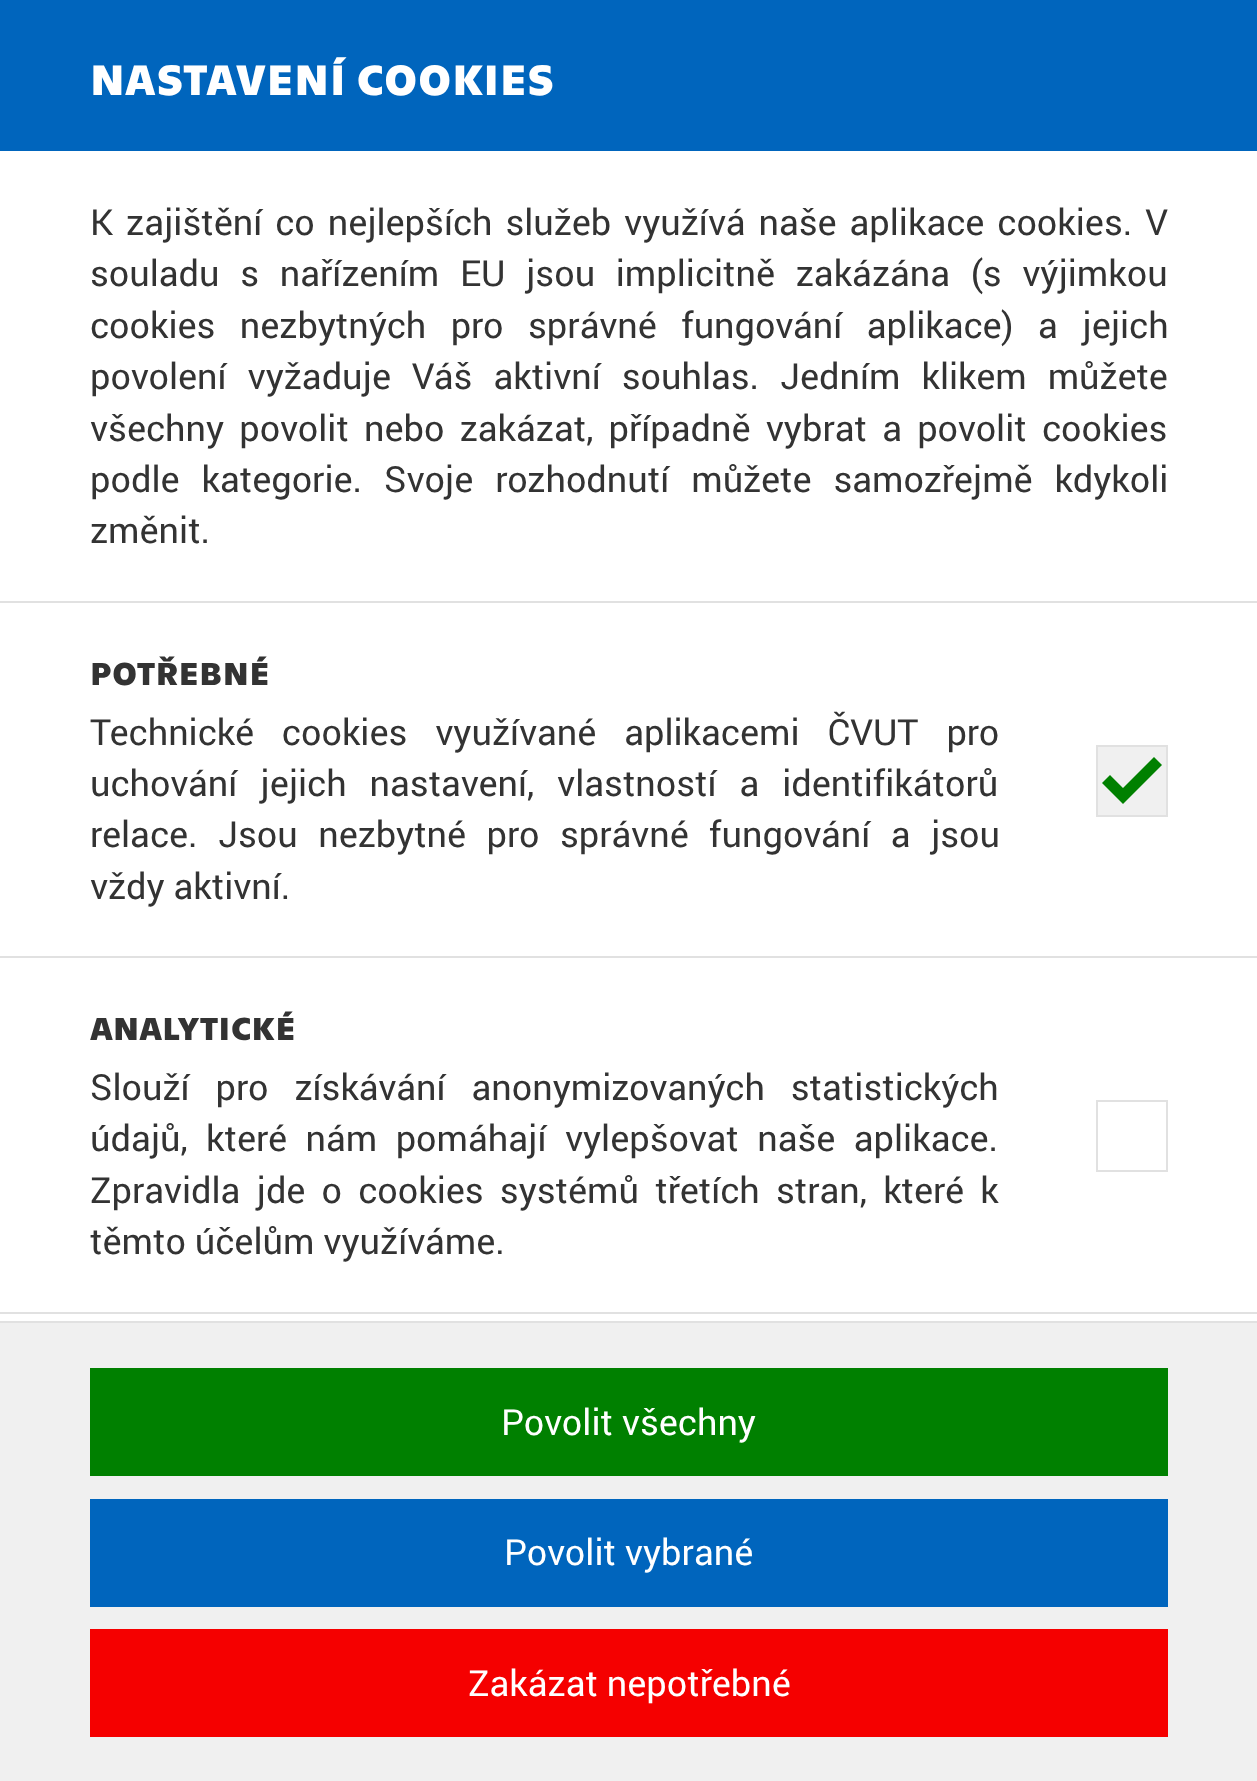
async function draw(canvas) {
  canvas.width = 1257;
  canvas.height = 1781;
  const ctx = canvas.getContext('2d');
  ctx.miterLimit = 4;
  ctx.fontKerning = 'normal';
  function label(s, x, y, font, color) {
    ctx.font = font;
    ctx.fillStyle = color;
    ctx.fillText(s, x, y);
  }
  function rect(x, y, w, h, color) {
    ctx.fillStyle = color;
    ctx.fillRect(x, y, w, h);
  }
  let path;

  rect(0, 0, 1257, 1781, '#fff');
  rect(0, 0, 1257, 151, '#0065bd');
  ctx.letterSpacing = '1.1px';
  label('NASTAVENÍ COOKIES', 90, 95, 'bold 43.25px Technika', '#fff');
  ctx.letterSpacing = '0px';
  ctx.wordSpacing = '4px';
  label('K zajištění co nejlepších služeb využívá naše aplikace cookies. V', 90, 235, '36px Roboto', '#333');
  ctx.wordSpacing = '11.75px';
  label('souladu s nařízením EU jsou implicitně zakázána (s výjimkou', 90, 286, '36px Roboto', '#333');
  ctx.wordSpacing = '15.5px';
  label('cookies nezbytných pro správné fungování aplikace) a jejich', 90, 338, '36px Roboto', '#333');
  ctx.wordSpacing = '12px';
  label('povolení vyžaduje Váš aktivní souhlas. Jedním klikem můžete', 90, 389, '36px Roboto', '#333');
  ctx.wordSpacing = '6.25px';
  label('všechny povolit nebo zakázat, případně vybrat a povolit cookies', 90, 441, '36px Roboto', '#333');
  ctx.wordSpacing = '13px';
  label('podle kategorie. Svoje rozhodnutí můžete samozřejmě kdykoli', 90, 492, '36px Roboto', '#333');
  ctx.wordSpacing = '0px';
  label('změnit.', 90, 543, '36px Roboto', '#333');
  rect(0, 601, 1257, 2, '#e1e1e1');
  rect(0, 956, 1257, 2, '#e1e1e1');
  ctx.letterSpacing = '0.75px';
  label('POTŘEBNÉ', 90, 685, 'bold 32.5px Technika', '#333');
  ctx.letterSpacing = '0px';
  ctx.wordSpacing = '19px';
  label('Technické cookies využívané aplikacemi ČVUT pro', 90, 745, '36px Roboto', '#333');
  ctx.wordSpacing = '14px';
  label('uchování jejich nastavení, vlastností a identifikátorů', 90, 796, '36px Roboto', '#333');
  ctx.wordSpacing = '11.5px';
  label('relace. Jsou nezbytné pro správné fungování a jsou', 90, 847, '36px Roboto', '#333');
  ctx.wordSpacing = '0px';
  label('vždy aktivní.', 90, 899, '36px Roboto', '#333');
  rect(1098, 747, 68, 68, '#f0f0f0');
  ctx.fillStyle = '#008000';
  path = new Path2D('M1123 804L1162 765L1154 757L1123 788L1110 775L1102 783Z');
  ctx.fill(path);
  ctx.strokeStyle = '#e1e1e1';
  ctx.lineWidth = 2;
  ctx.strokeRect(1097, 746, 70, 70);
  rect(0, 1312, 1257, 2, '#e1e1e1');
  ctx.letterSpacing = '0.75px';
  label('ANALYTICKÉ', 90, 1040, 'bold 32.5px Technika', '#333');
  ctx.letterSpacing = '0px';
  ctx.wordSpacing = '17px';
  label('Slouží pro získávání anonymizovaných statistických', 90, 1100, '36px Roboto', '#333');
  ctx.wordSpacing = '9.5px';
  label('údajů, které nám pomáhají vylepšovat naše aplikace.', 90, 1151, '36px Roboto', '#333');
  ctx.wordSpacing = '7.25px';
  label('Zpravidla jde o cookies systémů třetích stran, které k', 90, 1203, '36px Roboto', '#333');
  ctx.wordSpacing = '0px';
  label('těmto účelům využíváme.', 90, 1254, '36px Roboto', '#333');
  ctx.strokeRect(1097, 1101, 70, 70);
  rect(0, 1323, 1257, 458, '#f0f0f0');
  rect(0, 1321, 1257, 2, '#e1e1e1');
  rect(90, 1368, 1078, 108, '#008000');
  label('Povolit všechny', 501, 1435, '36px Roboto', '#fff');
  rect(90, 1499, 1078, 108, '#0065bd');
  label('Povolit vybrané', 504, 1565, '36px Roboto', '#fff');
  rect(90, 1629, 1078, 108, '#f50000');
  label('Zakázat nepotřebné', 468, 1696, '36px Roboto', '#fff');
}

draw(document.querySelector('canvas'));
